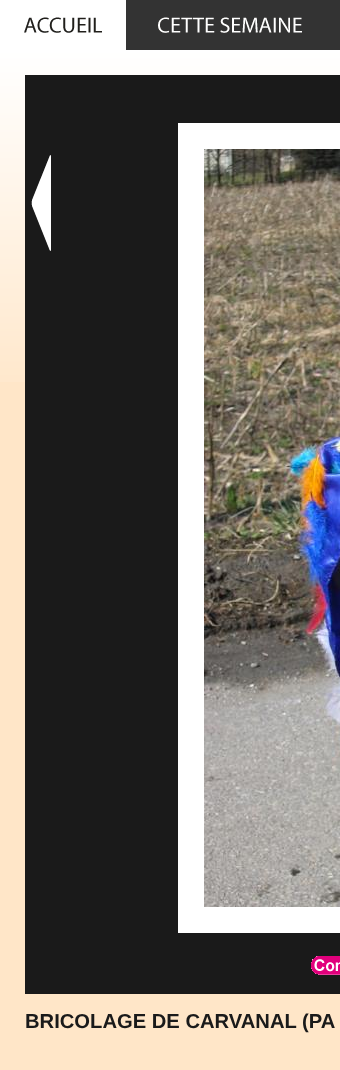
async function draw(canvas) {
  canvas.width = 340;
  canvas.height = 1070;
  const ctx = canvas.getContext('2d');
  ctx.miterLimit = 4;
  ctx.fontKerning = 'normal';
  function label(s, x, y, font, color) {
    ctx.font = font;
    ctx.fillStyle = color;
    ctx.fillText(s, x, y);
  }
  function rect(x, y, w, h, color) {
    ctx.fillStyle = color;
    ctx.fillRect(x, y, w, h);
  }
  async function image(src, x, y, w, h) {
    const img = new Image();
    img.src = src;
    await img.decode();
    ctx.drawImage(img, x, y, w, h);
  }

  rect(0, 0, 340, 1070, '#ffe6c8');
  await image('assets/img1.png', 0, 0, 126, 50);
  await image('assets/img2.png', 126, 0, 208, 50);
  rect(334, 0, 6, 50, '#333');
  await image('assets/img3.png', 0, 50, 340, 332);
  rect(25, 75, 315, 919, '#1a1a1a');
  ctx.strokeStyle = '#fff';
  ctx.lineWidth = 26;
  ctx.strokeRect(191, 136, 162, 784);
  await image('assets/img4.png', 31, 155, 20, 96);
  await image('assets/img5.png', 204, 149, 136, 758);
  await image('assets/img6.png', 311, 956, 29, 19);
  label('BRICOLAGE DE CARVANAL (PA', 25, 1028, 'bold 20.2px Liberation Sans', '#1a1a1a');
}

draw(document.querySelector('canvas'));
